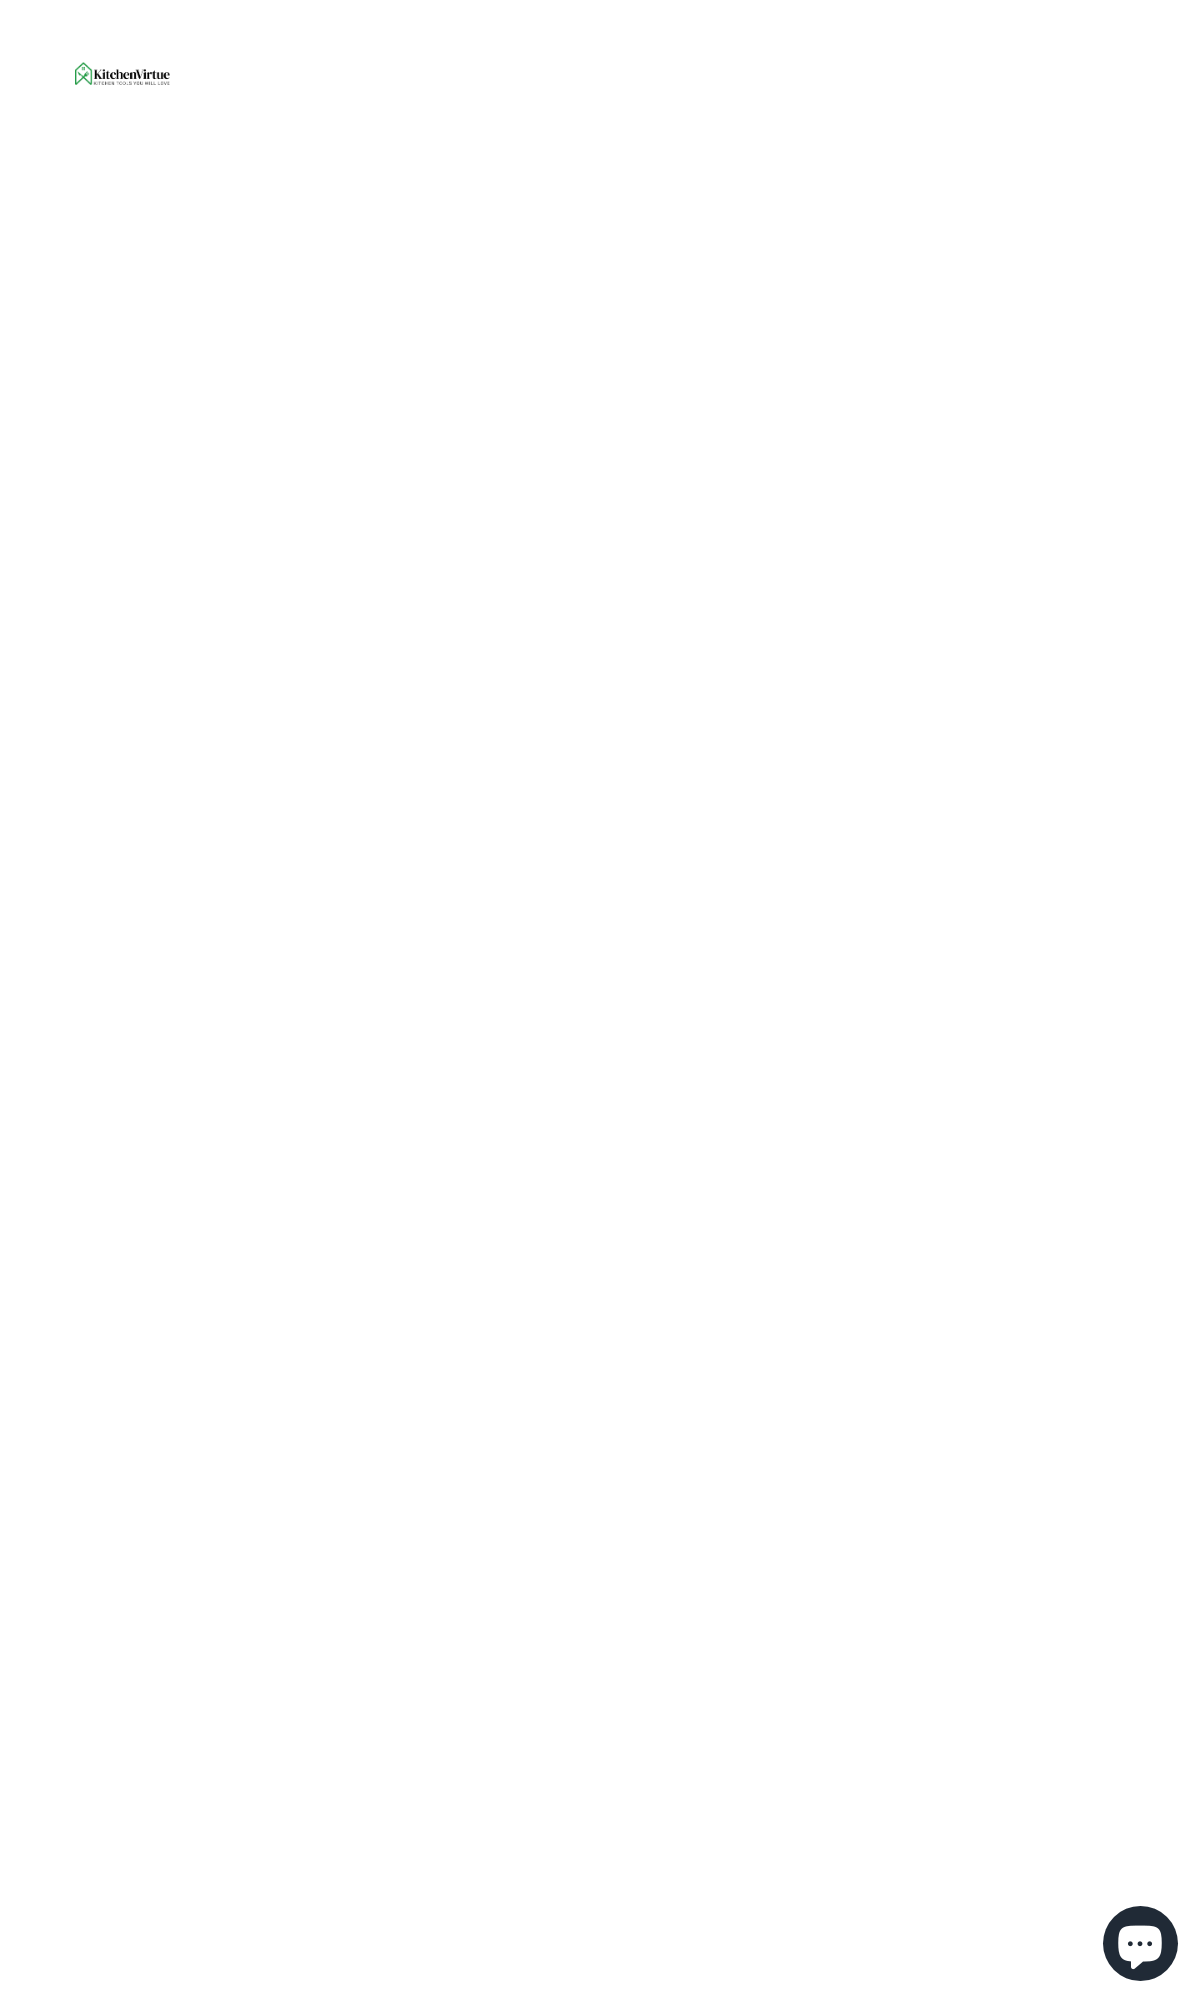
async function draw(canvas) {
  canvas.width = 1204;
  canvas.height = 2007;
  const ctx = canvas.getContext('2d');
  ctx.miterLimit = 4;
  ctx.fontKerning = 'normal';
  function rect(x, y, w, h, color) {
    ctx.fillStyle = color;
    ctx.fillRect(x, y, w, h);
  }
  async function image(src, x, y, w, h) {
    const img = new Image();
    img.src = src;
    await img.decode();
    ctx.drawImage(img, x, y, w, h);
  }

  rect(0, 0, 1204, 2007, '#fff');
  await image('assets/img1.png', 75, 62, 95, 23);
  ctx.fillStyle = '#202a36';
  ctx.beginPath();
  ctx.arc(1140.5, 1943.5, 37.5, 0, 2 * Math.PI);
  ctx.fill();
  await image('assets/img2.png', 1118, 1925, 44, 45);
}

draw(document.querySelector('canvas'));
